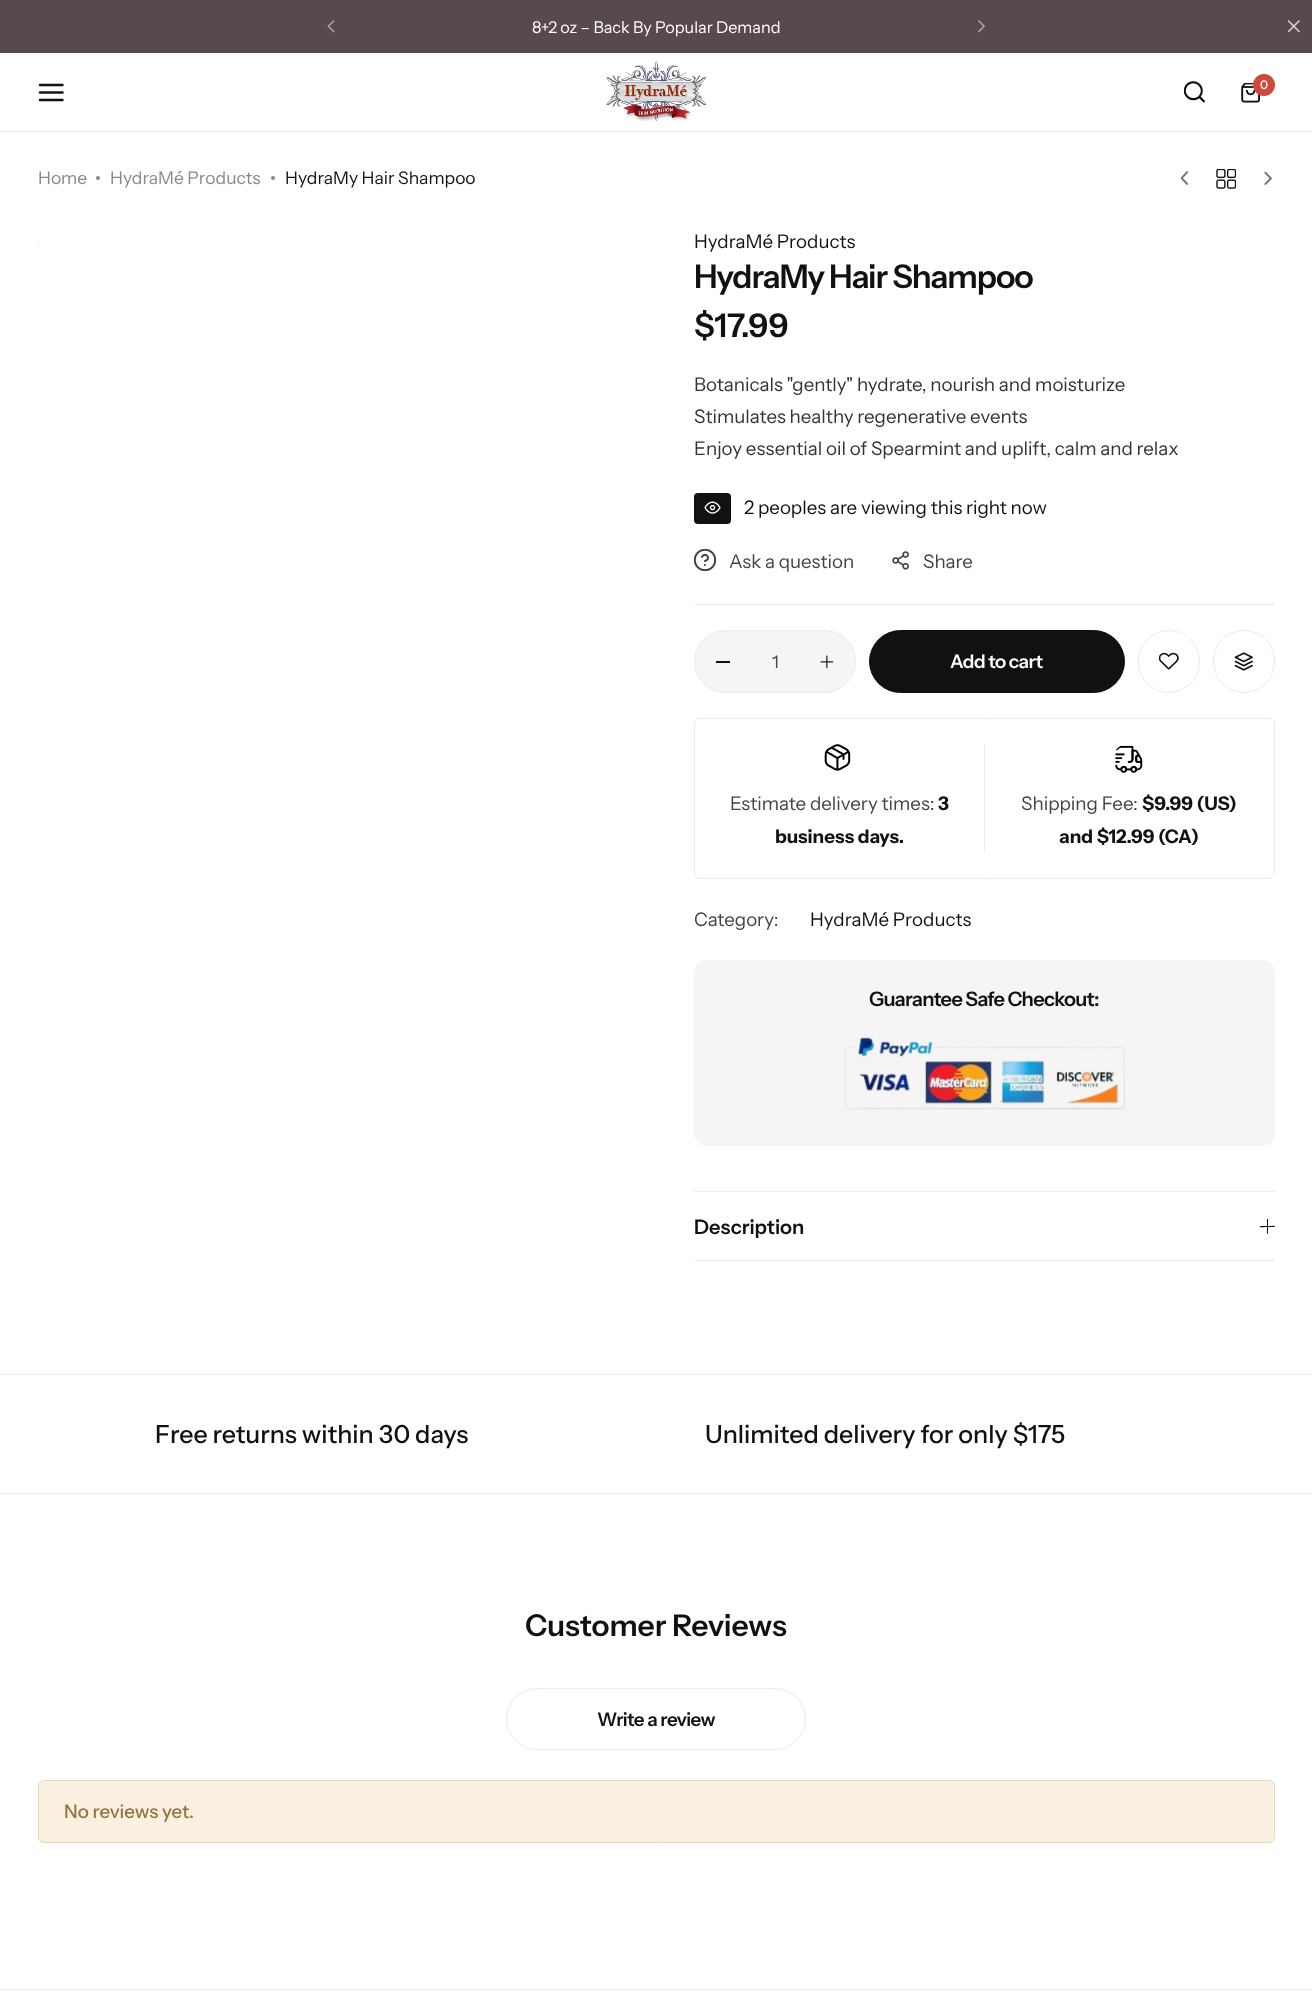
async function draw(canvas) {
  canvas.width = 1312;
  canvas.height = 2007;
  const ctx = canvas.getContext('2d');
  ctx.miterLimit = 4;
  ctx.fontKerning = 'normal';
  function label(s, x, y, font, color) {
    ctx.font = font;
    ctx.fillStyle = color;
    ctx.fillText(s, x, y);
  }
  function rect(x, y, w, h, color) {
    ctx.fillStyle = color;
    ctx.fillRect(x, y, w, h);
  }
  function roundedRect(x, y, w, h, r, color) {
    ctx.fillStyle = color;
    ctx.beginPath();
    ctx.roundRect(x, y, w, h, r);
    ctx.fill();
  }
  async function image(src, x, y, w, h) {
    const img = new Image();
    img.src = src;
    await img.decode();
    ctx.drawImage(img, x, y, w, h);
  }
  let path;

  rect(0, 0, 1312, 2007, '#fff');
  rect(0, 0, 1312, 53, '#57494c');
  await image('assets/img1.png', 327, 20, 8, 13);
  label('8+2 oz – Back By Popular Demand', 532, 33, '16.25px Instrument Sans', '#fff');
  await image('assets/img2.png', 978, 20, 8, 13);
  await image('assets/img3.png', 1288, 20, 12, 13);
  rect(0, 131, 1312, 1, '#ebebeb');
  await image('assets/img4.png', 38, 83, 26, 19);
  await image('assets/img5.png', 606, 61, 101, 60);
  await image('assets/img6.png', 1184, 81, 21, 22);
  await image('assets/img7.png', 1241, 83, 19, 20);
  ctx.fillStyle = '#d0473e';
  ctx.beginPath();
  ctx.arc(1264, 85, 11, 0, 2 * Math.PI);
  ctx.fill();
  label('0', 1260, 89, '500 12px Instrument Sans', '#fff');
  label('Home', 38, 184, '17.5px Instrument Sans', '#888');
  ctx.beginPath();
  ctx.arc(98, 178, 2, 0, 2 * Math.PI);
  ctx.fill();
  label('HydraMé Products', 110, 184, '17.5px Instrument Sans', '#888');
  ctx.beginPath();
  ctx.arc(273, 178, 2, 0, 2 * Math.PI);
  ctx.fill();
  label('HydraMy Hair Shampoo', 285, 184, '17.5px Instrument Sans', '#111');
  await image('assets/img8.png', 1180, 171, 9, 14);
  await image('assets/img9.png', 1216, 169, 20, 20);
  await image('assets/img10.png', 1264, 171, 8, 14);
  await image('assets/img11.png', 37, 242, 2, 2);
  label('HydraMé Products', 694, 248, '18.75px Instrument Sans', '#111');
  ctx.letterSpacing = '-1.1px';
  label('HydraMy Hair Shampoo', 694, 288, '600 32.5px Instrument Sans', '#111');
  ctx.letterSpacing = '0px';
  label('$17.99', 694, 337, '600 32.5px Instrument Sans', '#111');
  label('Botanicals "gently" hydrate, nourish and moisturize', 694, 391, '18.75px Instrument Sans', '#333');
  label('Stimulates healthy regenerative events', 694, 423, '18.75px Instrument Sans', '#333');
  label('Enjoy essential oil of Spearmint and uplift, calm and relax', 694, 455, '18.75px Instrument Sans', '#333');
  roundedRect(694, 493, 37, 31, 4, '#111');
  await image('assets/img12.png', 704, 501, 17, 13);
  label('2 peoples are viewing this right now', 744, 514, '18.75px Instrument Sans', '#111');
  rect(694, 604, 581, 1, '#ebebeb');
  await image('assets/img13.png', 694, 549, 22, 22);
  label('Ask a question', 729, 568, '18.75px Instrument Sans', '#444');
  await image('assets/img14.png', 892, 551, 17, 19);
  label('Share', 923, 568, '18.75px Instrument Sans', '#444');
  ctx.fillStyle = '#f5f5f5';
  ctx.beginPath();
  ctx.roundRect(694.5, 630.5, 161, 62, 31);
  ctx.fill();
  ctx.strokeStyle = '#ebebeb';
  ctx.stroke();
  rect(716, 661, 14, 2, '#111');
  label('1', 772, 668, '17.5px Instrument Sans', '#444');
  await image('assets/img15.png', 820, 655, 14, 14);
  ctx.fillStyle = '#111';
  ctx.beginPath();
  ctx.roundRect(869.5, 630.5, 255, 62, 31);
  ctx.fill();
  ctx.strokeStyle = '#111';
  ctx.stroke();
  ctx.letterSpacing = '-0.5px';
  label('Add to cart', 950, 668, '600 18.75px Instrument Sans', '#fff');
  ctx.beginPath();
  ctx.roundRect(1138.5, 630.5, 61, 62, 30.5);
  ctx.strokeStyle = '#ebebeb';
  ctx.stroke();
  await image('assets/img16.png', 1159, 652, 20, 18);
  ctx.beginPath();
  ctx.roundRect(1213.5, 630.5, 61, 62, 30.5);
  ctx.stroke();
  await image('assets/img17.png', 1234, 652, 19, 19);
  ctx.beginPath();
  ctx.roundRect(694.5, 718.5, 580, 160, 5.5);
  ctx.stroke();
  rect(984, 744, 1, 109, '#ebebeb');
  await image('assets/img18.png', 824, 744, 27, 27);
  ctx.letterSpacing = '0px';
  label('Estimate delivery times:', 730, 810, '18.75px Instrument Sans', '#444');
  label('3', 938, 810, 'bold 18.75px Instrument Sans', '#111');
  label('business days.', 775, 843, 'bold 18.75px Instrument Sans', '#111');
  await image('assets/img19.png', 1115, 745, 28, 28);
  label('Shipping Fee:', 1021, 810, '18.75px Instrument Sans', '#444');
  label('$9.99 (US)', 1142, 810, 'bold 18.75px Instrument Sans', '#111');
  label('and $12.99 (CA)', 1059, 843, 'bold 18.75px Instrument Sans', '#111');
  label('Category:', 694, 926, '18.75px Instrument Sans', '#444');
  label('HydraMé Products', 810, 926, '18.75px Instrument Sans', '#111');
  roundedRect(694, 960, 581, 186, 13, '#f5f5f5');
  ctx.letterSpacing = '-0.7px';
  label('Guarantee Safe Checkout:', 869, 1006, '600 20px Instrument Sans', '#111');
  await image('assets/img20.png', 844, 1037, 281, 73);
  rect(694, 1191, 581, 1, '#ebebeb');
  rect(694, 1260, 581, 1, '#ebebeb');
  ctx.letterSpacing = '0px';
  label('Description', 694, 1234, '600 20px Instrument Sans', '#111');
  path = new Path2D('M1267 1233.5V1219.5C1267 1219 1267.5 1219 1268 1219V1233.5C1267.5 1234 1267 1234 1267 1233.5Z');
  ctx.fill(path);
  path = new Path2D('M1260 1226.5L1260.5 1226H1270C1270.5 1226 1275 1225 1275 1226.5L1274.5 1227H1265C1264.5 1227 1260 1228 1260 1226.5Z');
  ctx.fill(path);
  rect(0, 1374, 1312, 1, '#ebebeb');
  rect(0, 1493, 1312, 1, '#ebebeb');
  label('Free returns within 30 days', 155, 1443, '500 25px Instrument Sans', '#111');
  label('Unlimited delivery for only $175', 705, 1443, '500 25px Instrument Sans', '#111');
  label('Customer Reviews', 525, 1636, '600 30px Instrument Sans', '#111');
  ctx.beginPath();
  ctx.roundRect(506.5, 1688.5, 299, 61, 30.5);
  ctx.stroke();
  ctx.letterSpacing = '-0.5px';
  label('Write a review', 597, 1726, '600 18.75px Instrument Sans', '#111');
  ctx.fillStyle = '#faf0df';
  ctx.beginPath();
  ctx.roundRect(38.5, 1780.5, 1236, 62, 5.5);
  ctx.fill();
  ctx.strokeStyle = '#e9d7b8';
  ctx.stroke();
  ctx.letterSpacing = '0px';
  label('No reviews yet.', 64, 1818, '500 18.75px Instrument Sans', '#907341');
  rect(0, 1989, 1312, 1, '#ebebeb');
}

draw(document.querySelector('canvas'));
